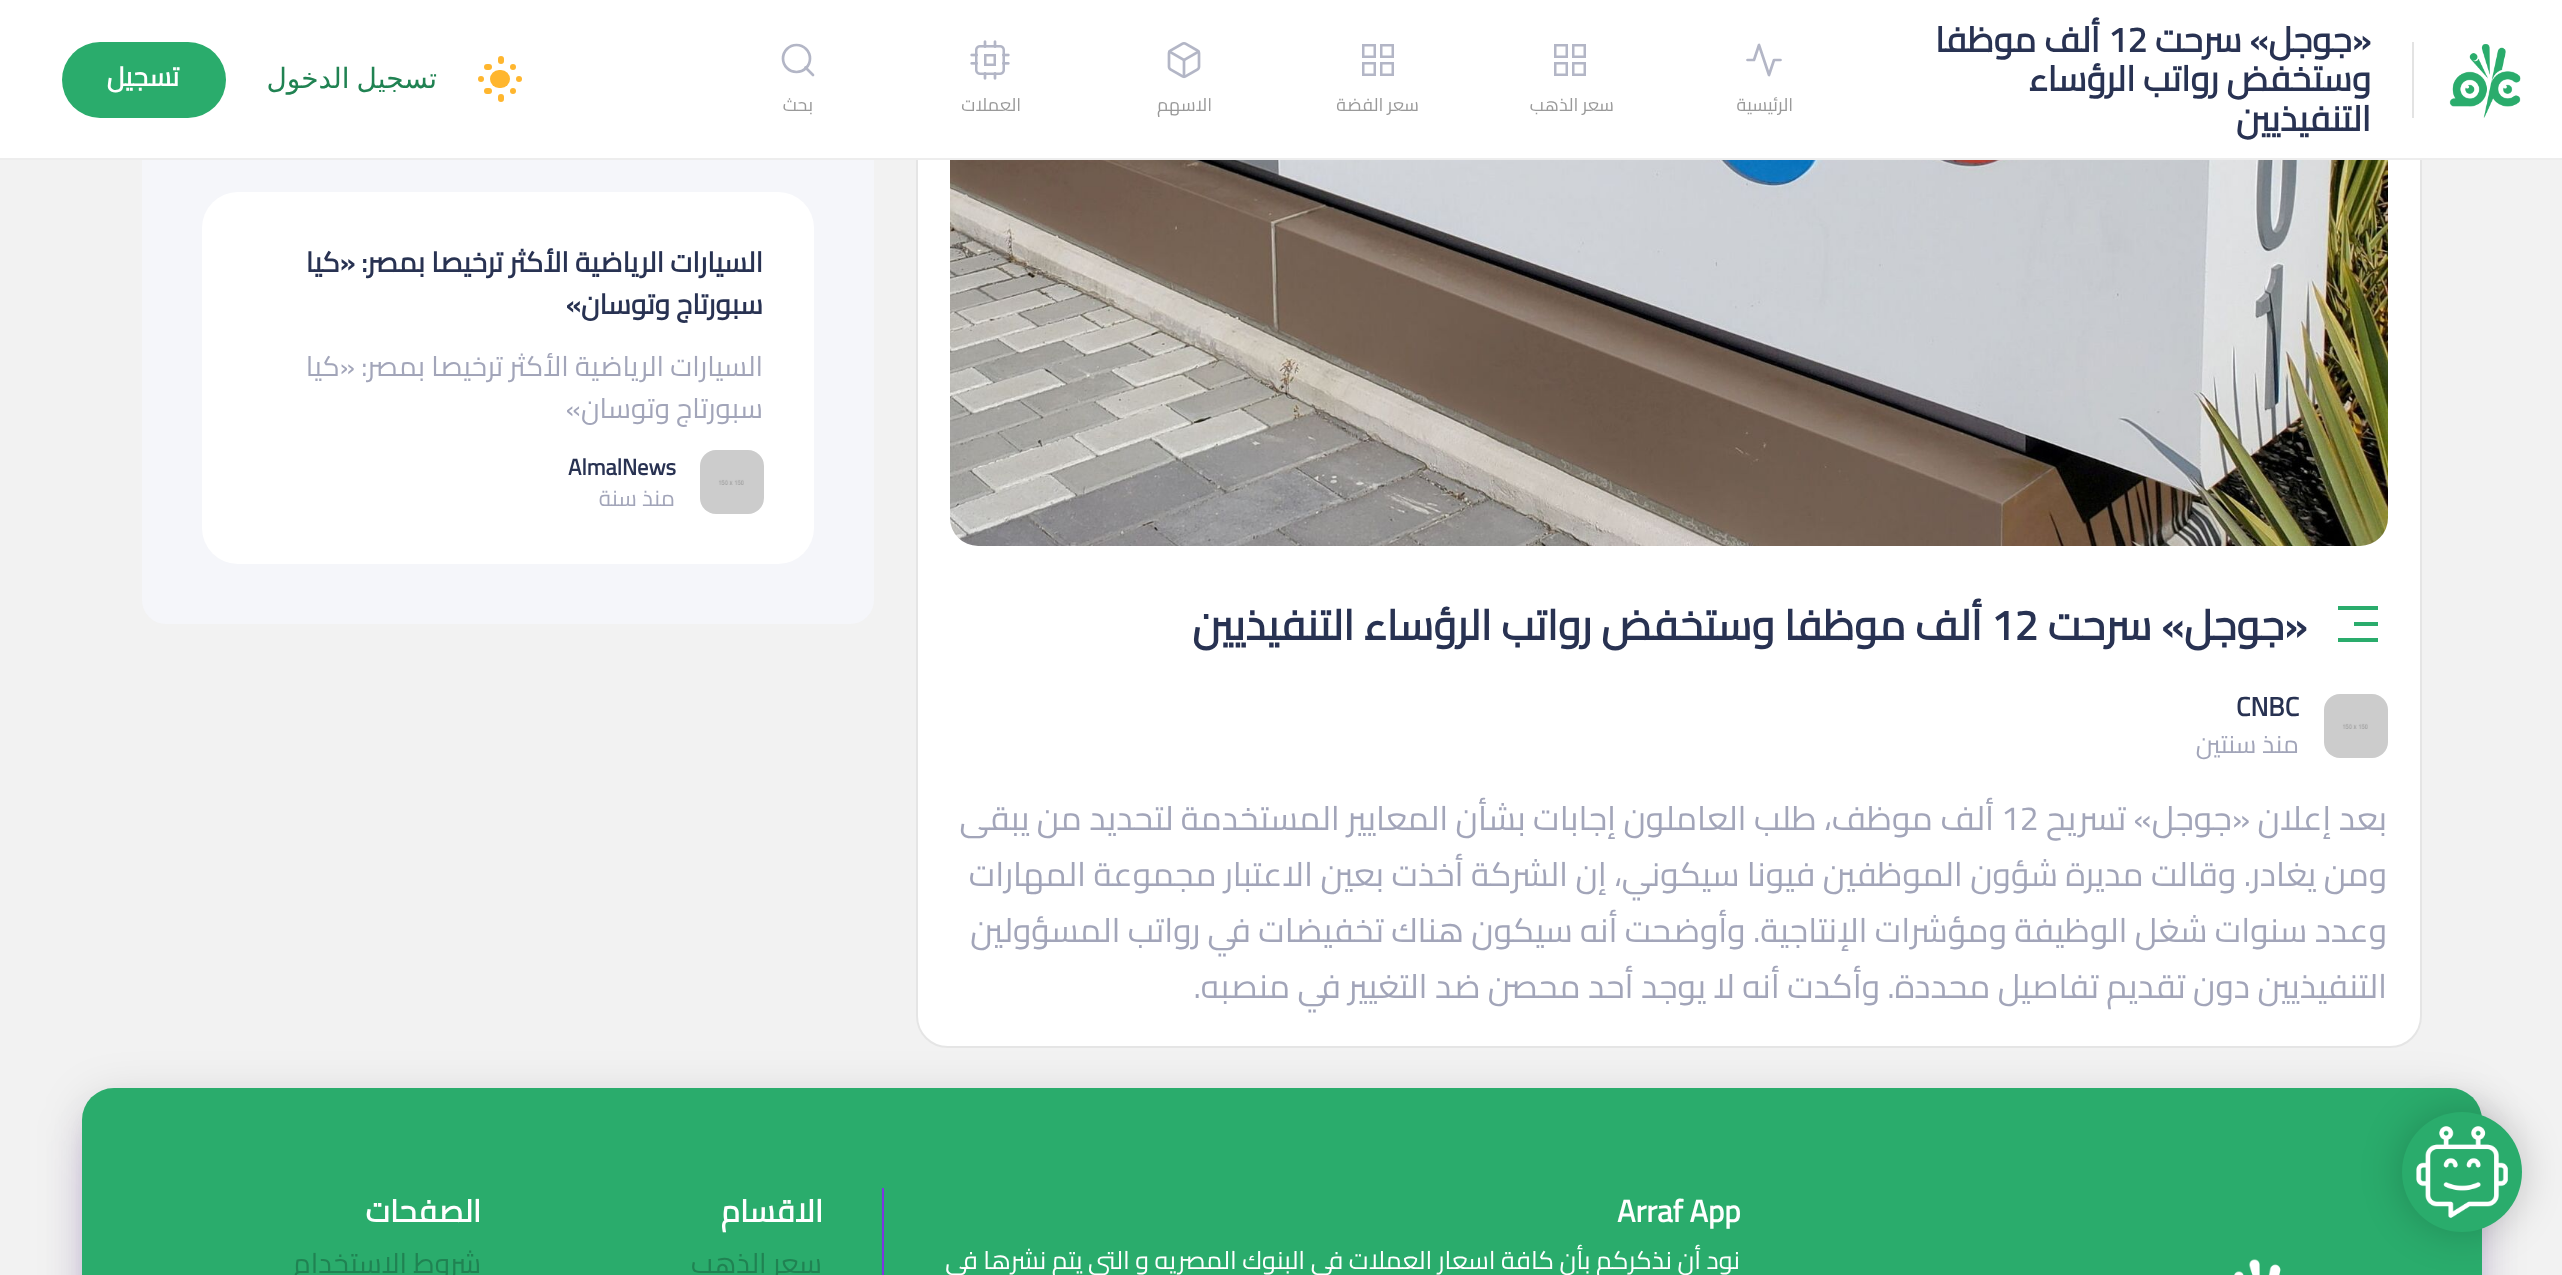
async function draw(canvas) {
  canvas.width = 2562;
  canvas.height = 1275;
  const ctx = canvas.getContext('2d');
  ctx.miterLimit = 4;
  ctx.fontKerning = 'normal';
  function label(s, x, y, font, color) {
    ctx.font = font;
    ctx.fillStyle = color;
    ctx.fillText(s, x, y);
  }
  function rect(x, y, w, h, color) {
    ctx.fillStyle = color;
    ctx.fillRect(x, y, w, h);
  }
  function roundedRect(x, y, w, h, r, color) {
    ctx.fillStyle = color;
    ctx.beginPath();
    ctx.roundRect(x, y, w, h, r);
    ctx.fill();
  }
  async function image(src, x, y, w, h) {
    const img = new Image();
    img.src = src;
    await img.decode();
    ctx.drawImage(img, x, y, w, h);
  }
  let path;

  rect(0, 0, 2562, 1275, '#f2f2f2');
  ctx.fillStyle = '#671cc933';
  ctx.filter = 'blur(10px)';
  ctx.beginPath();
  ctx.roundRect(92, 1114, 2380, 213, 22);
  ctx.fill();
  ctx.filter = 'none';
  ctx.fillStyle = '#0000001f';
  ctx.filter = 'blur(23px)';
  ctx.beginPath();
  ctx.roundRect(82, 1096, 2400, 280, 32);
  ctx.fill();
  ctx.filter = 'none';
  ctx.fillStyle = '#671cc96b';
  ctx.filter = 'blur(26px)';
  ctx.beginPath();
  ctx.roundRect(106, 1140, 2352, 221, 8);
  ctx.fill();
  ctx.filter = 'none';
  roundedRect(82, 1088, 2400, 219, 32, '#2aac6c');
  ctx.fillStyle = '#00000033';
  ctx.filter = 'blur(20px)';
  ctx.beginPath();
  ctx.roundRect(2402, 1112, 120, 120, 60);
  ctx.fill();
  ctx.filter = 'none';
  ctx.fillStyle = '#2aac6c';
  ctx.beginPath();
  ctx.arc(2462, 1172, 60, 0, 2 * Math.PI);
  ctx.fill();
  await image('assets/img1.png', 2416, 1126, 92, 92);
  roundedRect(142, -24, 732, 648, 24, '#f5f6fa');
  ctx.fillStyle = '#fff';
  ctx.beginPath();
  ctx.roundRect(917, -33, 1504, 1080, 31);
  ctx.fill();
  ctx.strokeStyle = '#e5e5e5';
  ctx.lineWidth = 2;
  ctx.stroke();
  rect(0, 0, 2562, 158, '#fff');
  rect(0, 158, 2562, 2, '#ededed');
  await image('assets/img2.png', 2449, 44, 72, 74);
  rect(2412, 42, 2, 76, '#e3e3e3');
  ctx.direction = 'rtl';
  label('«جوجل» سرحت', 2371, 52, 'bold 35px Cairo', '#283252');
  ctx.direction = 'ltr';
  label('12', 2108, 52, 'bold 35px Cairo', '#283252');
  ctx.direction = 'rtl';
  label('ألف موظفا', 2100, 52, 'bold 35px Cairo', '#283252');
  label('وستخفض رواتب الرؤساء', 2371, 91, 'bold 35px Cairo', '#283252');
  label('التنفيذيين', 2371, 131, 'bold 35px Cairo', '#283252');
  ctx.fillStyle = '#ffb62e';
  ctx.beginPath();
  ctx.arc(513, 67, 3, 0, 2 * Math.PI);
  ctx.fill();
  roundedRect(484, 64, 8, 6, 3, '#ffb62e');
  ctx.beginPath();
  ctx.arc(513, 91, 3, 0, 2 * Math.PI);
  ctx.fill();
  roundedRect(484, 88, 8, 6, 3, '#ffb62e');
  ctx.beginPath();
  ctx.arc(519, 79, 3, 0, 2 * Math.PI);
  ctx.fill();
  ctx.beginPath();
  ctx.arc(481, 79, 3, 0, 2 * Math.PI);
  ctx.fill();
  roundedRect(498, 94, 6, 8, 3, '#ffb62e');
  roundedRect(498, 56, 6, 8, 3, '#ffb62e');
  roundedRect(490, 70, 20, 18, 9, '#ffb62e');
  ctx.wordSpacing = '-2px';
  label('تسجيل الدخول', 437, 88, '28px DejaVu Sans', '#208252');
  roundedRect(62, 42, 164, 76, 38, '#2aac6c');
  ctx.wordSpacing = '0px';
  label('تسجيل', 179, 86, 'bold 26.5px Cairo', '#fff');
  path = new Path2D('M1780.5 60H1774L1769 75L1759 45L1754 60H1747.5');
  ctx.strokeStyle = '#b3b6c6';
  ctx.lineWidth = 2.7;
  ctx.lineCap = 'round';
  ctx.lineJoin = 'round';
  ctx.stroke(path);
  label('الرئيسية', 1793, 111, '18px Cairo', '#999');
  ctx.lineWidth = 2.5;
  ctx.lineJoin = 'miter';
  ctx.strokeRect(1573.25, 45.25, 11.5, 11.5);
  ctx.strokeRect(1555.25, 45.25, 11.5, 11.5);
  ctx.strokeRect(1573.25, 63.25, 11.5, 11.5);
  ctx.strokeRect(1555.25, 63.25, 11.5, 11.5);
  label('سعر الذهب', 1614, 111, '18px Cairo', '#999');
  ctx.strokeRect(1381.25, 45.25, 11.5, 11.5);
  ctx.strokeRect(1363.25, 45.25, 11.5, 11.5);
  ctx.strokeRect(1381.25, 63.25, 11.5, 11.5);
  ctx.strokeRect(1363.25, 63.25, 11.5, 11.5);
  label('سعر الفضة', 1419, 111, '18px Cairo', '#999');
  await image('assets/img3.png', 1167, 42, 34, 37);
  label('الاسهم', 1212, 111, '18px Cairo', '#999');
  await image('assets/img4.png', 970, 40, 40, 40);
  label('العملات', 1021, 111, '18px Cairo', '#999');
  ctx.beginPath();
  ctx.arc(796.5, 58.5, 13.5, 0, 2 * Math.PI);
  ctx.lineWidth = 2.7;
  ctx.stroke();
  path = new Path2D('M813 75L805.5 67.5');
  ctx.lineJoin = 'round';
  ctx.stroke(path);
  label('بحث', 813, 111, '18px Cairo', '#999');
  roundedRect(202, 192, 612, 372, 36, '#fff');
  label('السيارات الرياضية الأكثر ترخيصا بمصر: «كيا', 763, 272, 'bold 28px Cairo', '#283252');
  label('سبورتاج وتوسان»', 763, 314, 'bold 28px Cairo', '#283252');
  label('السيارات الرياضية الأكثر ترخيصا بمصر: «كيا', 763, 376, '28px Cairo', '#a2a5b9');
  label('سبورتاج وتوسان»', 763, 418, '28px Cairo', '#a2a5b9');
  await image('assets/img5.png', 700, 450, 64, 64);
  ctx.direction = 'ltr';
  label('AlmalNews', 568, 475, 'bold 22.5px Cairo', '#283252');
  ctx.direction = 'rtl';
  label('منذ سنة', 675, 506, '22.5px Cairo', '#a2a5b9');
  await image('assets/img6.png', 950, 160, 1438, 386);
  rect(2338, 606, 40, 4, '#2aac6c');
  rect(2354, 622, 24, 4, '#2aac6c');
  rect(2338, 638, 40, 4, '#2aac6c');
  label('«جوجل» سرحت', 2307, 640, 'bold 42px Cairo', '#283252');
  ctx.direction = 'ltr';
  label('12', 1991, 640, 'bold 42px Cairo', '#283252');
  ctx.direction = 'rtl';
  label('ألف موظفا وستخفض رواتب الرؤساء التنفيذيين', 1982, 640, 'bold 42px Cairo', '#283252');
  await image('assets/img7.png', 2324, 694, 64, 64);
  ctx.direction = 'ltr';
  label('CNBC', 2236, 716, 'bold 26.5px Cairo', '#283252');
  ctx.direction = 'rtl';
  label('منذ سنتين', 2299, 753, '25.2px Cairo', '#a2a5b9');
  label('بعد إعلان «جوجل» تسريح', 2387, 830, '33.6px Cairo', '#a2a5b9');
  ctx.direction = 'ltr';
  label('12', 2001, 830, '33.6px Cairo', '#a2a5b9');
  ctx.direction = 'rtl';
  label('ألف موظف، طلب العاملون إجابات بشأن المعايير المستخدمة لتحديد من يبقى', 1994, 830, '33.6px Cairo', '#a2a5b9');
  label('ومن يغادر. وقالت مديرة شؤون الموظفين فيونا سيكوني، إن الشركة أخذت بعين الاعتبار مجموعة المهارات', 2387, 886, '33.6px Cairo', '#a2a5b9');
  ctx.wordSpacing = '-0.1px';
  label('وعدد سنوات شغل الوظيفة ومؤشرات الإنتاجية. وأوضحت أنه سيكون هناك تخفيضات في رواتب المسؤولين', 2387, 942, '33.6px Cairo', '#a2a5b9');
  ctx.wordSpacing = '0px';
  label('التنفيذيين دون تقديم تفاصيل محددة. وأكدت أنه لا يوجد أحد محصن ضد التغيير في منصبه.', 2387, 998, '33.6px Cairo', '#a2a5b9');
  await image('assets/img8.png', 2234, 1259, 47, 16);
  rect(882, 1188, 2, 87, '#8035e3');
  ctx.direction = 'ltr';
  label('Arraf App', 1617, 1222, 'bold 31px Cairo', '#fff');
  ctx.direction = 'rtl';
  label('نود أن نذكركم بأن كافة اسعار العملات في البنوك المصريه و التي يتم نشرها في', 1740, 1269, '25.2px Cairo', '#fff');
  label('الاقسام', 823, 1222, 'bold 31px Cairo', '#fff');
  label('سعر الذهب', 822, 1273, '28px Cairo', '#208252');
  label('الصفحات', 481, 1222, 'bold 31px Cairo', '#fff');
  label('شروط الاستخدام', 481, 1273, '28px Cairo', '#208252');
}

draw(document.querySelector('canvas'));
